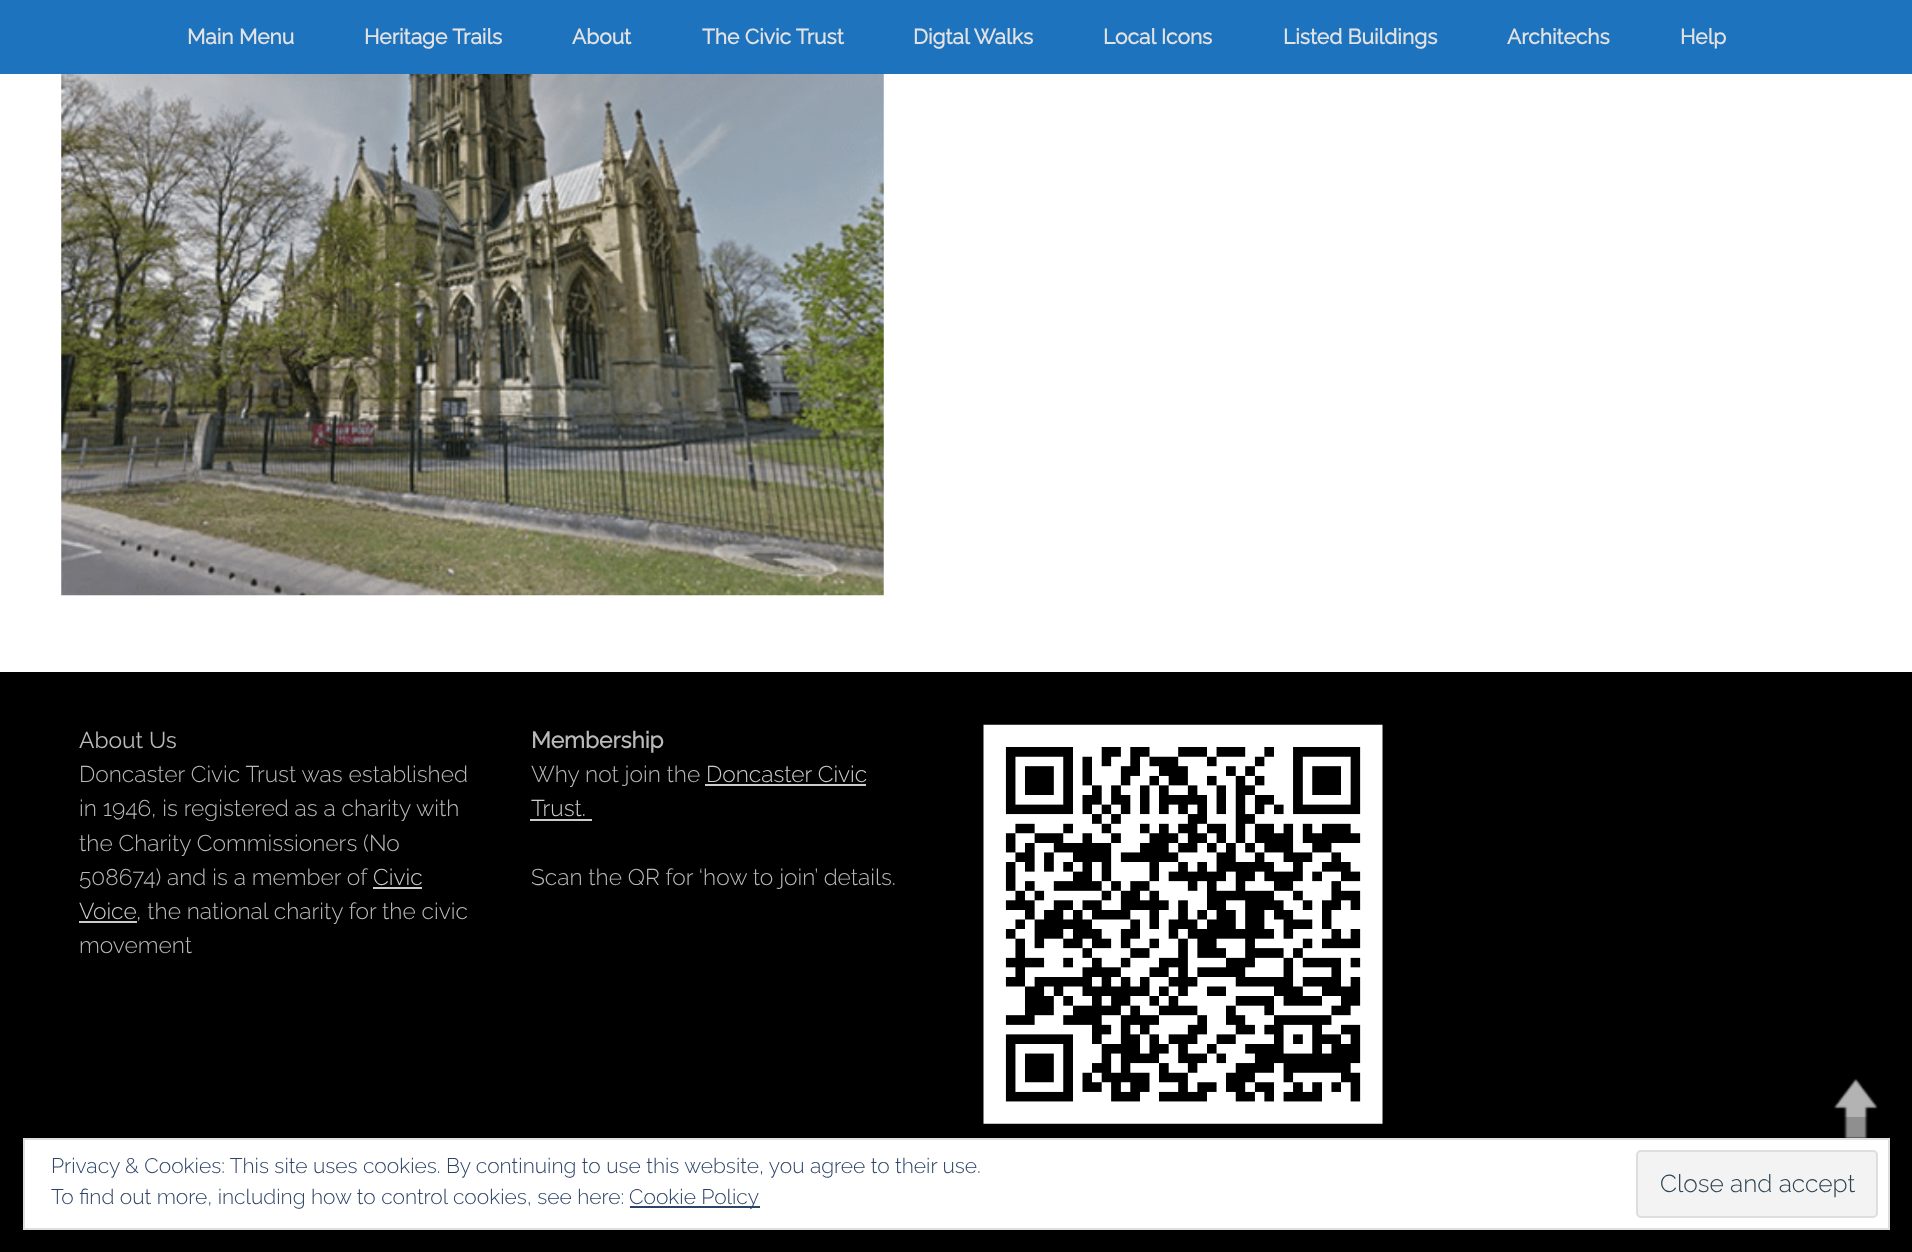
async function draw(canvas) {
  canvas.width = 1912;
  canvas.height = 1252;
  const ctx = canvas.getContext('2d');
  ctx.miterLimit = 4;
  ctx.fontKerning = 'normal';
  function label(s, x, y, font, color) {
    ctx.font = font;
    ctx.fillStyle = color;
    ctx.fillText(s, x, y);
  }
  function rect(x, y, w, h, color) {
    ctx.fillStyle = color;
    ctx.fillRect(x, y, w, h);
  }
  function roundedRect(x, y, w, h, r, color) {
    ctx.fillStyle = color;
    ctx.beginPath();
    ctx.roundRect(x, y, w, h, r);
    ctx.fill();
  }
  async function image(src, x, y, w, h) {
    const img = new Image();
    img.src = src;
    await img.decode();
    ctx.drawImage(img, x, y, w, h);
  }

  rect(0, 0, 1912, 1252, '#000');
  rect(0, 0, 1912, 74, '#1e73be');
  label('Main Menu', 187, 44, 'bold 21px Raleway', '#e2e2e2');
  label('Heritage Trails', 364, 44, 'bold 21px Raleway', '#e2e2e2');
  label('About', 572, 44, 'bold 21px Raleway', '#e2e2e2');
  label('The Civic Trust', 702, 44, 'bold 21px Raleway', '#e2e2e2');
  label('Digtal Walks', 913, 44, 'bold 21px Raleway', '#e2e2e2');
  label('Local Icons', 1103, 44, 'bold 21px Raleway', '#e2e2e2');
  label('Listed Buildings', 1283, 44, 'bold 21px Raleway', '#e2e2e2');
  label('Architechs', 1507, 44, 'bold 21px Raleway', '#e2e2e2');
  label('Help', 1680, 44, 'bold 21px Raleway', '#e2e2e2');
  rect(0, 74, 1912, 598, '#fff');
  await image('assets/img1.png', 61, 74, 823, 522);
  label('About Us', 79, 748, '22.75px Raleway', '#b9b9b9');
  label('Doncaster Civic Trust was established', 79, 782, '300 22.75px Raleway', '#b9b9b9');
  label('in 1946, is registered as a charity with', 79, 816, '300 22.75px Raleway', '#b9b9b9');
  label('the Charity Commissioners (No', 79, 851, '300 22.75px Raleway', '#b9b9b9');
  label('508674) and is a member of', 79, 885, '300 22.75px Raleway', '#b9b9b9');
  label('Civic', 373, 885, '300 22.75px Raleway', '#ccc');
  rect(373, 887, 49, 2, '#ccc');
  label('Voice', 79, 919, '300 22.75px Raleway', '#ccc');
  rect(79, 921, 58, 2, '#ccc');
  label(', the national charity for the civic', 136, 919, '300 22.75px Raleway', '#b9b9b9');
  label('movement', 79, 953, '300 22.75px Raleway', '#b9b9b9');
  label('Membership', 531, 748, 'bold 22.75px Raleway', '#b9b9b9');
  label('Why not join the', 531, 782, '300 22.75px Raleway', '#b9b9b9');
  label('Doncaster Civic', 706, 782, '300 22.75px Raleway', '#ccc');
  rect(705, 784, 161, 2, '#ccc');
  label('Trust.', 531, 816, '300 22.75px Raleway', '#ccc');
  rect(530, 819, 62, 2, '#ccc');
  label('Scan the QR for ‘how to join’ details.', 531, 885, '300 22.75px Raleway', '#b9b9b9');
  await image('assets/img2.png', 983, 724, 400, 400);
  await image('assets/img3.png', 1833, 1079, 45, 59);
  roundedRect(1776, 1117, 102, 101, 5, '#00000033');
  ctx.fillStyle = '#fff';
  ctx.beginPath();
  ctx.rect(24, 1139, 1865, 90);
  ctx.fill();
  ctx.strokeStyle = '#dedede';
  ctx.lineWidth = 2;
  ctx.stroke();
  label('Privacy & Cookies: This site uses cookies. By continuing to use this website, you agree to their use.', 51, 1173, '300 21px Raleway', '#2e4467');
  label('To find out more, including how to control cookies, see here:', 51, 1204, '300 21px Raleway', '#2e4467');
  rect(630, 1206, 130, 2, '#2e4467');
  label('Cookie Policy', 629, 1204, '300 21px Raleway', '#2e4467');
  ctx.fillStyle = '#f3f3f3';
  ctx.beginPath();
  ctx.roundRect(1637, 1151, 240, 66, 4);
  ctx.fill();
  ctx.stroke();
  label('Close and accept', 1660, 1192, '300 24.5px Raleway', '#2e4453');
}

draw(document.querySelector('canvas'));
